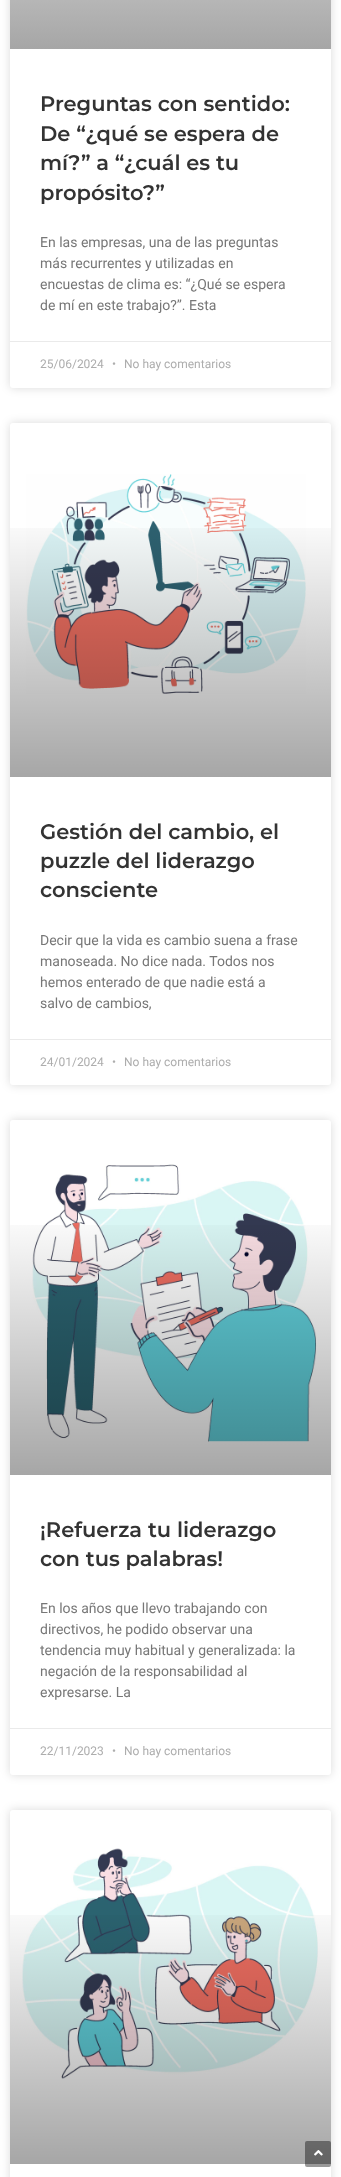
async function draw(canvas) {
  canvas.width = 341;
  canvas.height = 2177;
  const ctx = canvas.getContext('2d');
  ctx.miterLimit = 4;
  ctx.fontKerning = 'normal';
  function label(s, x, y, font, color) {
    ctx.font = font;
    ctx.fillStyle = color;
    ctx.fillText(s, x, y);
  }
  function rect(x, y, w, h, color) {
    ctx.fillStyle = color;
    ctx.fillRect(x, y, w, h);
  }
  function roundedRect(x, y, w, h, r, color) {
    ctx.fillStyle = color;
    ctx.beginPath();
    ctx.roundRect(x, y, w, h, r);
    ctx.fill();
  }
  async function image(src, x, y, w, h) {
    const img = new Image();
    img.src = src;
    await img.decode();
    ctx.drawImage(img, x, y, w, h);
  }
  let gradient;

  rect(0, 0, 341, 2177, '#fff');
  ctx.fillStyle = '#00000026';
  ctx.filter = 'blur(5px)';
  ctx.beginPath();
  ctx.roundRect(10, -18, 321, 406, 3);
  ctx.fill();
  ctx.filter = 'none';
  roundedRect(10, -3, 321, 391, 3, '#fff');
  gradient = ctx.createLinearGradient(171, 49, 171, -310);
  gradient.addColorStop(0, '#a6a6a6');
  gradient.addColorStop(0.75, '#fff');
  ctx.fillStyle = gradient;
  ctx.fillRect(10, 0, 321, 49);
  label('Preguntas con sentido:', 40, 111, '600 21px Montserrat', '#333');
  label('De “¿qué se espera de', 40, 141, '600 21px Montserrat', '#333');
  label('mí?” a “¿cuál es tu', 40, 170, '600 21px Montserrat', '#333');
  label('propósito?”', 40, 200, '600 21px Montserrat', '#333');
  label('En las empresas, una de las preguntas', 40, 247, '14px Roboto', '#777');
  label('más recurrentes y utilizadas en', 40, 268, '14px Roboto', '#777');
  label('encuestas de clima es: “¿Qué se espera', 40, 289, '14px Roboto', '#777');
  label('de mí en este trabajo?”. Esta', 40, 310, '14px Roboto', '#777');
  rect(10, 341, 321, 1, '#eaeaea');
  label('25/06/2024', 40, 368, '12px Roboto', '#adadad');
  label('•', 112, 368, '12px Roboto', '#adadad');
  label('No hay comentarios', 124, 368, '12px Roboto', '#adadad');
  ctx.fillStyle = '#00000026';
  ctx.filter = 'blur(5px)';
  ctx.beginPath();
  ctx.roundRect(10, 423, 321, 662, 3);
  ctx.fill();
  ctx.filter = 'none';
  roundedRect(10, 423, 321, 662, 3, '#fff');
  await image('assets/img1.png', 26, 474, 280, 220);
  gradient = ctx.createLinearGradient(171, 777, 171, 423);
  gradient.addColorStop(0, '#00000059');
  gradient.addColorStop(0.75, '#00000000');
  ctx.fillStyle = gradient;
  ctx.fillRect(10, 528, 321, 249);
  label('Gestión del cambio, el', 40, 839, '600 21px Montserrat', '#333');
  label('puzzle del liderazgo', 40, 868, '600 21px Montserrat', '#333');
  label('consciente', 40, 897, '600 21px Montserrat', '#333');
  label('Decir que la vida es cambio suena a frase', 40, 945, '14px Roboto', '#777');
  label('manoseada. No dice nada. Todos nos', 40, 966, '14px Roboto', '#777');
  label('hemos enterado de que nadie está a', 40, 987, '14px Roboto', '#777');
  label('salvo de cambios,', 40, 1008, '14px Roboto', '#777');
  rect(10, 1039, 321, 1, '#eaeaea');
  label('24/01/2024', 40, 1066, '12px Roboto', '#adadad');
  label('•', 112, 1066, '12px Roboto', '#adadad');
  label('No hay comentarios', 124, 1066, '12px Roboto', '#adadad');
  ctx.fillStyle = '#00000026';
  ctx.filter = 'blur(5px)';
  ctx.beginPath();
  ctx.roundRect(10, 1120, 321, 655, 3);
  ctx.fill();
  ctx.filter = 'none';
  roundedRect(10, 1120, 321, 655, 3, '#fff');
  await image('assets/img2.png', 32, 1164, 285, 278);
  gradient = ctx.createLinearGradient(171, 1475, 171, 1120);
  gradient.addColorStop(0, '#00000059');
  gradient.addColorStop(0.75, '#00000000');
  ctx.fillStyle = gradient;
  ctx.fillRect(10, 1225, 321, 250);
  label('¡Refuerza tu liderazgo', 40, 1537, '600 21px Montserrat', '#333');
  label('con tus palabras!', 40, 1566, '600 21px Montserrat', '#333');
  label('En los años que llevo trabajando con', 40, 1613, '14px Roboto', '#777');
  label('directivos, he podido observar una', 40, 1634, '14px Roboto', '#777');
  label('tendencia muy habitual y generalizada: la', 40, 1655, '14px Roboto', '#777');
  label('negación de la responsabilidad al', 40, 1676, '14px Roboto', '#777');
  label('expresarse. La', 40, 1697, '14px Roboto', '#777');
  rect(10, 1728, 321, 1, '#eaeaea');
  label('22/11/2023', 40, 1755, '12px Roboto', '#adadad');
  label('•', 112, 1755, '12px Roboto', '#adadad');
  label('No hay comentarios', 124, 1755, '12px Roboto', '#adadad');
  ctx.fillStyle = '#00000026';
  ctx.filter = 'blur(5px)';
  ctx.beginPath();
  ctx.roundRect(10, 1810, 321, 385, 3);
  ctx.fill();
  ctx.filter = 'none';
  roundedRect(10, 1810, 321, 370, 3, '#fff');
  await image('assets/img3.png', 22, 1848, 296, 231);
  gradient = ctx.createLinearGradient(171, 2164, 171, 1810);
  gradient.addColorStop(0, '#00000059');
  gradient.addColorStop(0.75, '#00000000');
  ctx.fillStyle = gradient;
  ctx.fillRect(10, 1915, 321, 249);
  roundedRect(305, 2141, 26, 26, 2, '#00000066');
  await image('assets/img4.png', 314, 2150, 9, 6);
}

draw(document.querySelector('canvas'));
